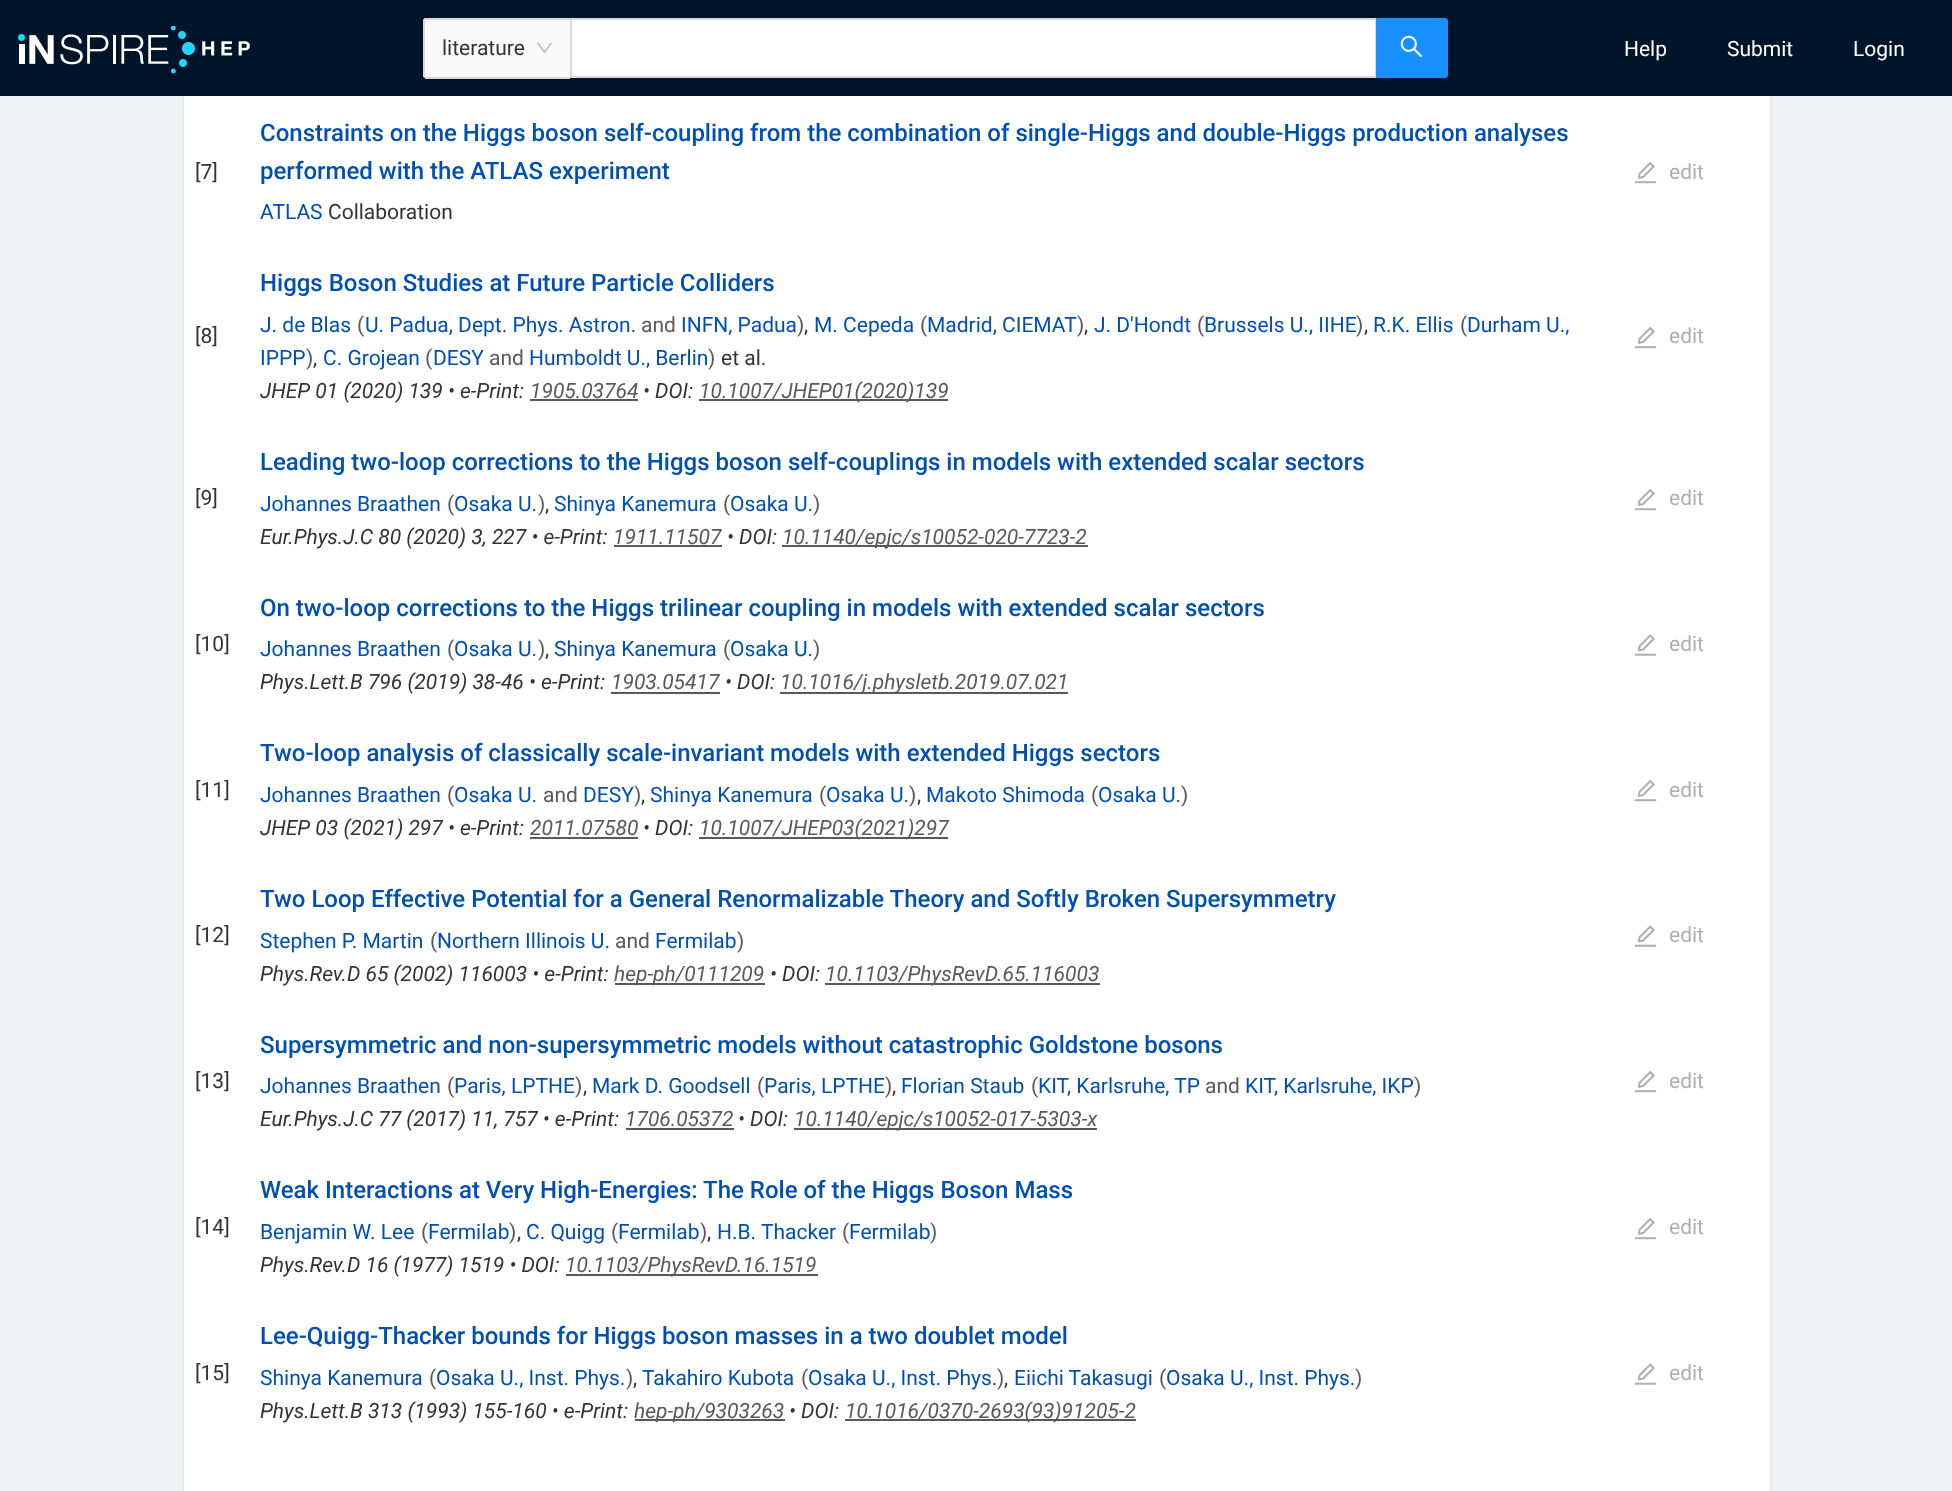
async function draw(canvas) {
  canvas.width = 1952;
  canvas.height = 1491;
  const ctx = canvas.getContext('2d');
  ctx.miterLimit = 4;
  ctx.fontKerning = 'normal';
  function label(s, x, y, font, color) {
    ctx.font = font;
    ctx.fillStyle = color;
    ctx.fillText(s, x, y);
  }
  function rect(x, y, w, h, color) {
    ctx.fillStyle = color;
    ctx.fillRect(x, y, w, h);
  }
  async function image(src, x, y, w, h) {
    const img = new Image();
    img.src = src;
    await img.decode();
    ctx.drawImage(img, x, y, w, h);
  }

  rect(0, 0, 1952, 1491, '#f0f2f5');
  rect(0, 0, 1952, 96, '#001529');
  await image('assets/img1.png', 18, 26, 232, 48);
  ctx.fillStyle = '#fafafa';
  ctx.beginPath();
  ctx.roundRect(423, 18, 147, 60, [3, 0, 0, 3]);
  ctx.fill();
  rect(425, 18, 145, 2, '#d9d9d9');
  rect(425, 77, 145, 2, '#d9d9d9');
  rect(423, 20, 2, 57, '#d9d9d9');
  label('literature', 442, 55, '21px Roboto', '#333');
  await image('assets/img2.png', 537, 42, 15, 11);
  ctx.fillStyle = '#fff';
  ctx.beginPath();
  ctx.rect(571, 19, 805, 58);
  ctx.fill();
  ctx.strokeStyle = '#d9d9d9';
  ctx.lineWidth = 2;
  ctx.stroke();
  ctx.fillStyle = '#1890ff';
  ctx.beginPath();
  ctx.roundRect(1377, 19, 70, 58, [0, 2, 2, 0]);
  ctx.fill();
  ctx.strokeStyle = '#1890ff';
  ctx.stroke();
  await image('assets/img3.png', 1400, 35, 23, 23);
  label('Help', 1624, 56, '21px Roboto', '#fff');
  label('Submit', 1727, 56, '21px Roboto', '#fff');
  label('Login', 1853, 56, '21px Roboto', '#fff');
  rect(184, 96, 1586, 1395, '#fff');
  rect(1770, 96, 2, 1395, '#e8e8e8');
  rect(182, 96, 2, 1395, '#e8e8e8');
  label('[7]', 195, 179, '21px Roboto', '#333');
  label('Constraints on the Higgs boson self-coupling from the combination of single-Higgs and double-Higgs production analyses', 260, 141, '500 24px Roboto', '#0050b3');
  label('performed with the ATLAS experiment', 260, 179, '500 24px Roboto', '#0050b3');
  label('ATLAS', 260, 219, '21px Roboto', '#0050b3');
  label('Collaboration', 328, 219, '21px Roboto', '#333');
  await image('assets/img4.png', 1634, 161, 23, 23);
  label('edit', 1669, 179, '21px Roboto', '#afafaf');
  label('[8]', 195, 343, '21px Roboto', '#333');
  label('Higgs Boson Studies at Future Particle Colliders', 260, 291, '500 24px Roboto', '#0050b3');
  label('J. de Blas', 260, 332, '21px Roboto', '#0050b3');
  label('(', 357, 332, '21px Roboto', '#595959');
  label('U. Padua, Dept. Phys. Astron.', 365, 332, '21px Roboto', '#0050b3');
  label('and', 641, 332, '21px Roboto', '#595959');
  label('INFN, Padua', 681, 332, '21px Roboto', '#0050b3');
  label(')', 797, 332, '21px Roboto', '#595959');
  label(',', 804, 332, '21px Roboto', '#333');
  label('M. Cepeda', 814, 332, '21px Roboto', '#0050b3');
  label('(', 920, 332, '21px Roboto', '#595959');
  label('Madrid, CIEMAT', 927, 332, '21px Roboto', '#0050b3');
  label(')', 1077, 332, '21px Roboto', '#595959');
  label(',', 1084, 332, '21px Roboto', '#333');
  label('J. D\'Hondt', 1094, 332, '21px Roboto', '#0050b3');
  label('(', 1197, 332, '21px Roboto', '#595959');
  label('Brussels U., IIHE', 1204, 332, '21px Roboto', '#0050b3');
  label(')', 1356, 332, '21px Roboto', '#595959');
  label(',', 1364, 332, '21px Roboto', '#333');
  label('R.K. Ellis', 1373, 332, '21px Roboto', '#0050b3');
  label('(', 1460, 332, '21px Roboto', '#595959');
  label('Durham U.,', 1467, 332, '21px Roboto', '#0050b3');
  label('IPPP', 260, 365, '21px Roboto', '#0050b3');
  label(')', 306, 365, '21px Roboto', '#595959');
  label(',', 313, 365, '21px Roboto', '#333');
  label('C. Grojean', 323, 365, '21px Roboto', '#0050b3');
  label('(', 425, 365, '21px Roboto', '#595959');
  label('DESY', 433, 365, '21px Roboto', '#0050b3');
  label('and', 489, 365, '21px Roboto', '#595959');
  label('Humboldt U., Berlin', 529, 365, '21px Roboto', '#0050b3');
  label(')', 708, 365, '21px Roboto', '#595959');
  label('et al.', 721, 365, '21px Roboto', '#333');
  label('JHEP 01 (2020) 139 • e-Print:', 260, 398, 'italic 21px Roboto', '#333');
  label('1905.03764', 530, 398, 'italic 21px Roboto', '#595959');
  rect(530, 399, 108, 2, '#595959');
  label('• DOI:', 643, 398, 'italic 21px Roboto', '#333');
  rect(699, 399, 249, 2, '#595959');
  label('10.1007/JHEP01(2020)139', 699, 398, 'italic 21px Roboto', '#595959');
  await image('assets/img4.png', 1634, 326, 23, 23);
  label('edit', 1669, 343, '21px Roboto', '#afafaf');
  label('[9]', 195, 505, '21px Roboto', '#333');
  label('Leading two-loop corrections to the Higgs boson self-couplings in models with extended scalar sectors', 260, 470, '500 24px Roboto', '#0050b3');
  label('Johannes Braathen', 260, 511, '21px Roboto', '#0050b3');
  label('(', 447, 511, '21px Roboto', '#595959');
  label('Osaka U.', 454, 511, '21px Roboto', '#0050b3');
  label(')', 538, 511, '21px Roboto', '#595959');
  label(',', 545, 511, '21px Roboto', '#333');
  label('Shinya Kanemura', 554, 511, '21px Roboto', '#0050b3');
  label('(', 723, 511, '21px Roboto', '#595959');
  label('Osaka U.', 730, 511, '21px Roboto', '#0050b3');
  label(')', 813, 511, '21px Roboto', '#595959');
  label('Eur.Phys.J.C 80 (2020) 3, 227 • e-Print:', 260, 544, 'italic 21px Roboto', '#333');
  label('1911.11507', 613, 544, 'italic 21px Roboto', '#595959');
  rect(614, 545, 108, 2, '#595959');
  label('• DOI:', 727, 544, 'italic 21px Roboto', '#333');
  rect(782, 545, 306, 2, '#595959');
  label('10.1140/epjc/s10052-020-7723-2', 782, 544, 'italic 21px Roboto', '#595959');
  await image('assets/img4.png', 1634, 488, 23, 23);
  label('edit', 1669, 505, '21px Roboto', '#afafaf');
  label('[10]', 195, 651, '21px Roboto', '#333');
  label('On two-loop corrections to the Higgs trilinear coupling in models with extended scalar sectors', 260, 616, '500 24px Roboto', '#0050b3');
  label('Johannes Braathen', 260, 656, '21px Roboto', '#0050b3');
  label('(', 447, 656, '21px Roboto', '#595959');
  label('Osaka U.', 454, 656, '21px Roboto', '#0050b3');
  label(')', 538, 656, '21px Roboto', '#595959');
  label(',', 545, 656, '21px Roboto', '#333');
  label('Shinya Kanemura', 554, 656, '21px Roboto', '#0050b3');
  label('(', 723, 656, '21px Roboto', '#595959');
  label('Osaka U.', 730, 656, '21px Roboto', '#0050b3');
  label(')', 813, 656, '21px Roboto', '#595959');
  label('Phys.Lett.B 796 (2019) 38-46 • e-Print:', 260, 689, 'italic 21px Roboto', '#333');
  label('1903.05417', 611, 689, 'italic 21px Roboto', '#595959');
  rect(611, 692, 109, 2, '#595959');
  label('• DOI:', 725, 689, 'italic 21px Roboto', '#333');
  rect(780, 692, 288, 2, '#595959');
  label('10.1016/j.physletb.2019.07.021', 780, 689, 'italic 21px Roboto', '#595959');
  await image('assets/img5.png', 1634, 634, 23, 22);
  label('edit', 1669, 651, '21px Roboto', '#afafaf');
  label('[11]', 195, 797, '21px Roboto', '#333');
  label('Two-loop analysis of classically scale-invariant models with extended Higgs sectors', 260, 761, '500 24px Roboto', '#0050b3');
  label('Johannes Braathen', 260, 802, '21px Roboto', '#0050b3');
  label('(', 447, 802, '21px Roboto', '#595959');
  label('Osaka U.', 454, 802, '21px Roboto', '#0050b3');
  label('and', 543, 802, '21px Roboto', '#595959');
  label('DESY', 583, 802, '21px Roboto', '#0050b3');
  label(')', 634, 802, '21px Roboto', '#595959');
  label(',', 641, 802, '21px Roboto', '#333');
  label('Shinya Kanemura', 650, 802, '21px Roboto', '#0050b3');
  label('(', 819, 802, '21px Roboto', '#595959');
  label('Osaka U.', 826, 802, '21px Roboto', '#0050b3');
  label(')', 909, 802, '21px Roboto', '#595959');
  label(',', 917, 802, '21px Roboto', '#333');
  label('Makoto Shimoda', 926, 802, '21px Roboto', '#0050b3');
  label('(', 1091, 802, '21px Roboto', '#595959');
  label('Osaka U.', 1098, 802, '21px Roboto', '#0050b3');
  label(')', 1181, 802, '21px Roboto', '#595959');
  label('JHEP 03 (2021) 297 • e-Print:', 260, 835, 'italic 21px Roboto', '#333');
  label('2011.07580', 530, 835, 'italic 21px Roboto', '#595959');
  rect(530, 837, 108, 2, '#595959');
  label('• DOI:', 643, 835, 'italic 21px Roboto', '#333');
  rect(699, 837, 249, 2, '#595959');
  label('10.1007/JHEP03(2021)297', 699, 835, 'italic 21px Roboto', '#595959');
  await image('assets/img4.png', 1634, 779, 23, 23);
  label('edit', 1669, 797, '21px Roboto', '#afafaf');
  label('[12]', 195, 942, '21px Roboto', '#333');
  label('Two Loop Effective Potential for a General Renormalizable Theory and Softly Broken Supersymmetry', 260, 907, '500 24px Roboto', '#0050b3');
  label('Stephen P. Martin', 260, 948, '21px Roboto', '#0050b3');
  label('(', 430, 948, '21px Roboto', '#595959');
  label('Northern Illinois U.', 437, 948, '21px Roboto', '#0050b3');
  label('and', 615, 948, '21px Roboto', '#595959');
  label('Fermilab', 655, 948, '21px Roboto', '#0050b3');
  label(')', 737, 948, '21px Roboto', '#595959');
  label('Phys.Rev.D 65 (2002) 116003 • e-Print:', 260, 981, 'italic 21px Roboto', '#333');
  rect(615, 983, 150, 2, '#595959');
  label('hep-ph/0111209', 614, 981, 'italic 21px Roboto', '#595959');
  label('• DOI:', 770, 981, 'italic 21px Roboto', '#333');
  rect(825, 983, 275, 2, '#595959');
  label('10.1103/PhysRevD.65.116003', 825, 981, 'italic 21px Roboto', '#595959');
  await image('assets/img5.png', 1634, 925, 23, 22);
  label('edit', 1669, 942, '21px Roboto', '#afafaf');
  label('[13]', 195, 1088, '21px Roboto', '#333');
  label('Supersymmetric and non-supersymmetric models without catastrophic Goldstone bosons', 260, 1053, '500 24px Roboto', '#0050b3');
  label('Johannes Braathen', 260, 1093, '21px Roboto', '#0050b3');
  label('(', 447, 1093, '21px Roboto', '#595959');
  label('Paris, LPTHE', 454, 1093, '21px Roboto', '#0050b3');
  label(')', 575, 1093, '21px Roboto', '#595959');
  label(',', 583, 1093, '21px Roboto', '#333');
  label('Mark D. Goodsell', 592, 1093, '21px Roboto', '#0050b3');
  label('(', 757, 1093, '21px Roboto', '#595959');
  label('Paris, LPTHE', 764, 1093, '21px Roboto', '#0050b3');
  label(')', 885, 1093, '21px Roboto', '#595959');
  label(',', 892, 1093, '21px Roboto', '#333');
  label('Florian Staub', 901, 1093, '21px Roboto', '#0050b3');
  label('(', 1031, 1093, '21px Roboto', '#595959');
  label('KIT, Karlsruhe, TP', 1038, 1093, '21px Roboto', '#0050b3');
  label('and', 1205, 1093, '21px Roboto', '#595959');
  label('KIT, Karlsruhe, IKP', 1245, 1093, '21px Roboto', '#0050b3');
  label(')', 1414, 1093, '21px Roboto', '#595959');
  label('Eur.Phys.J.C 77 (2017) 11, 757 • e-Print:', 260, 1126, 'italic 21px Roboto', '#333');
  label('1706.05372', 625, 1126, 'italic 21px Roboto', '#595959');
  rect(626, 1128, 108, 2, '#595959');
  label('• DOI:', 738, 1126, 'italic 21px Roboto', '#333');
  rect(794, 1128, 303, 2, '#595959');
  label('10.1140/epjc/s10052-017-5303-x', 794, 1126, 'italic 21px Roboto', '#595959');
  await image('assets/img4.png', 1634, 1070, 23, 23);
  label('edit', 1669, 1088, '21px Roboto', '#afafaf');
  label('[14]', 195, 1234, '21px Roboto', '#333');
  label('Weak Interactions at Very High-Energies: The Role of the Higgs Boson Mass', 260, 1198, '500 24px Roboto', '#0050b3');
  label('Benjamin W. Lee', 260, 1239, '21px Roboto', '#0050b3');
  label('(', 421, 1239, '21px Roboto', '#595959');
  label('Fermilab', 428, 1239, '21px Roboto', '#0050b3');
  label(')', 509, 1239, '21px Roboto', '#595959');
  label(',', 517, 1239, '21px Roboto', '#333');
  label('C. Quigg', 526, 1239, '21px Roboto', '#0050b3');
  label('(', 611, 1239, '21px Roboto', '#595959');
  label('Fermilab', 618, 1239, '21px Roboto', '#0050b3');
  label(')', 700, 1239, '21px Roboto', '#595959');
  label(',', 707, 1239, '21px Roboto', '#333');
  label('H.B. Thacker', 717, 1239, '21px Roboto', '#0050b3');
  label('(', 842, 1239, '21px Roboto', '#595959');
  label('Fermilab', 849, 1239, '21px Roboto', '#0050b3');
  label(')', 930, 1239, '21px Roboto', '#595959');
  label('Phys.Rev.D 16 (1977) 1519 • DOI:', 260, 1272, 'italic 21px Roboto', '#333');
  rect(566, 1274, 252, 2, '#595959');
  label('10.1103/PhysRevD.16.1519', 565, 1272, 'italic 21px Roboto', '#595959');
  await image('assets/img4.png', 1634, 1217, 23, 23);
  label('edit', 1669, 1234, '21px Roboto', '#afafaf');
  label('[15]', 195, 1380, '21px Roboto', '#333');
  label('Lee-Quigg-Thacker bounds for Higgs boson masses in a two doublet model', 260, 1344, '500 24px Roboto', '#0050b3');
  label('Shinya Kanemura', 260, 1385, '21px Roboto', '#0050b3');
  label('(', 429, 1385, '21px Roboto', '#595959');
  label('Osaka U., Inst. Phys.', 436, 1385, '21px Roboto', '#0050b3');
  label(')', 626, 1385, '21px Roboto', '#595959');
  label(',', 633, 1385, '21px Roboto', '#333');
  label('Takahiro Kubota', 642, 1385, '21px Roboto', '#0050b3');
  label('(', 801, 1385, '21px Roboto', '#595959');
  label('Osaka U., Inst. Phys.', 808, 1385, '21px Roboto', '#0050b3');
  label(')', 997, 1385, '21px Roboto', '#595959');
  label(',', 1004, 1385, '21px Roboto', '#333');
  label('Eiichi Takasugi', 1014, 1385, '21px Roboto', '#0050b3');
  label('(', 1159, 1385, '21px Roboto', '#595959');
  label('Osaka U., Inst. Phys.', 1166, 1385, '21px Roboto', '#0050b3');
  label(')', 1355, 1385, '21px Roboto', '#595959');
  label('Phys.Lett.B 313 (1993) 155-160 • e-Print:', 260, 1418, 'italic 21px Roboto', '#333');
  rect(635, 1419, 150, 2, '#595959');
  label('hep-ph/9303263', 634, 1418, 'italic 21px Roboto', '#595959');
  label('• DOI:', 789, 1418, 'italic 21px Roboto', '#333');
  rect(845, 1419, 291, 2, '#595959');
  label('10.1016/0370-2693(93)91205-2', 845, 1418, 'italic 21px Roboto', '#595959');
  await image('assets/img5.png', 1634, 1363, 23, 22);
  label('edit', 1669, 1380, '21px Roboto', '#afafaf');
}

draw(document.querySelector('canvas'));
